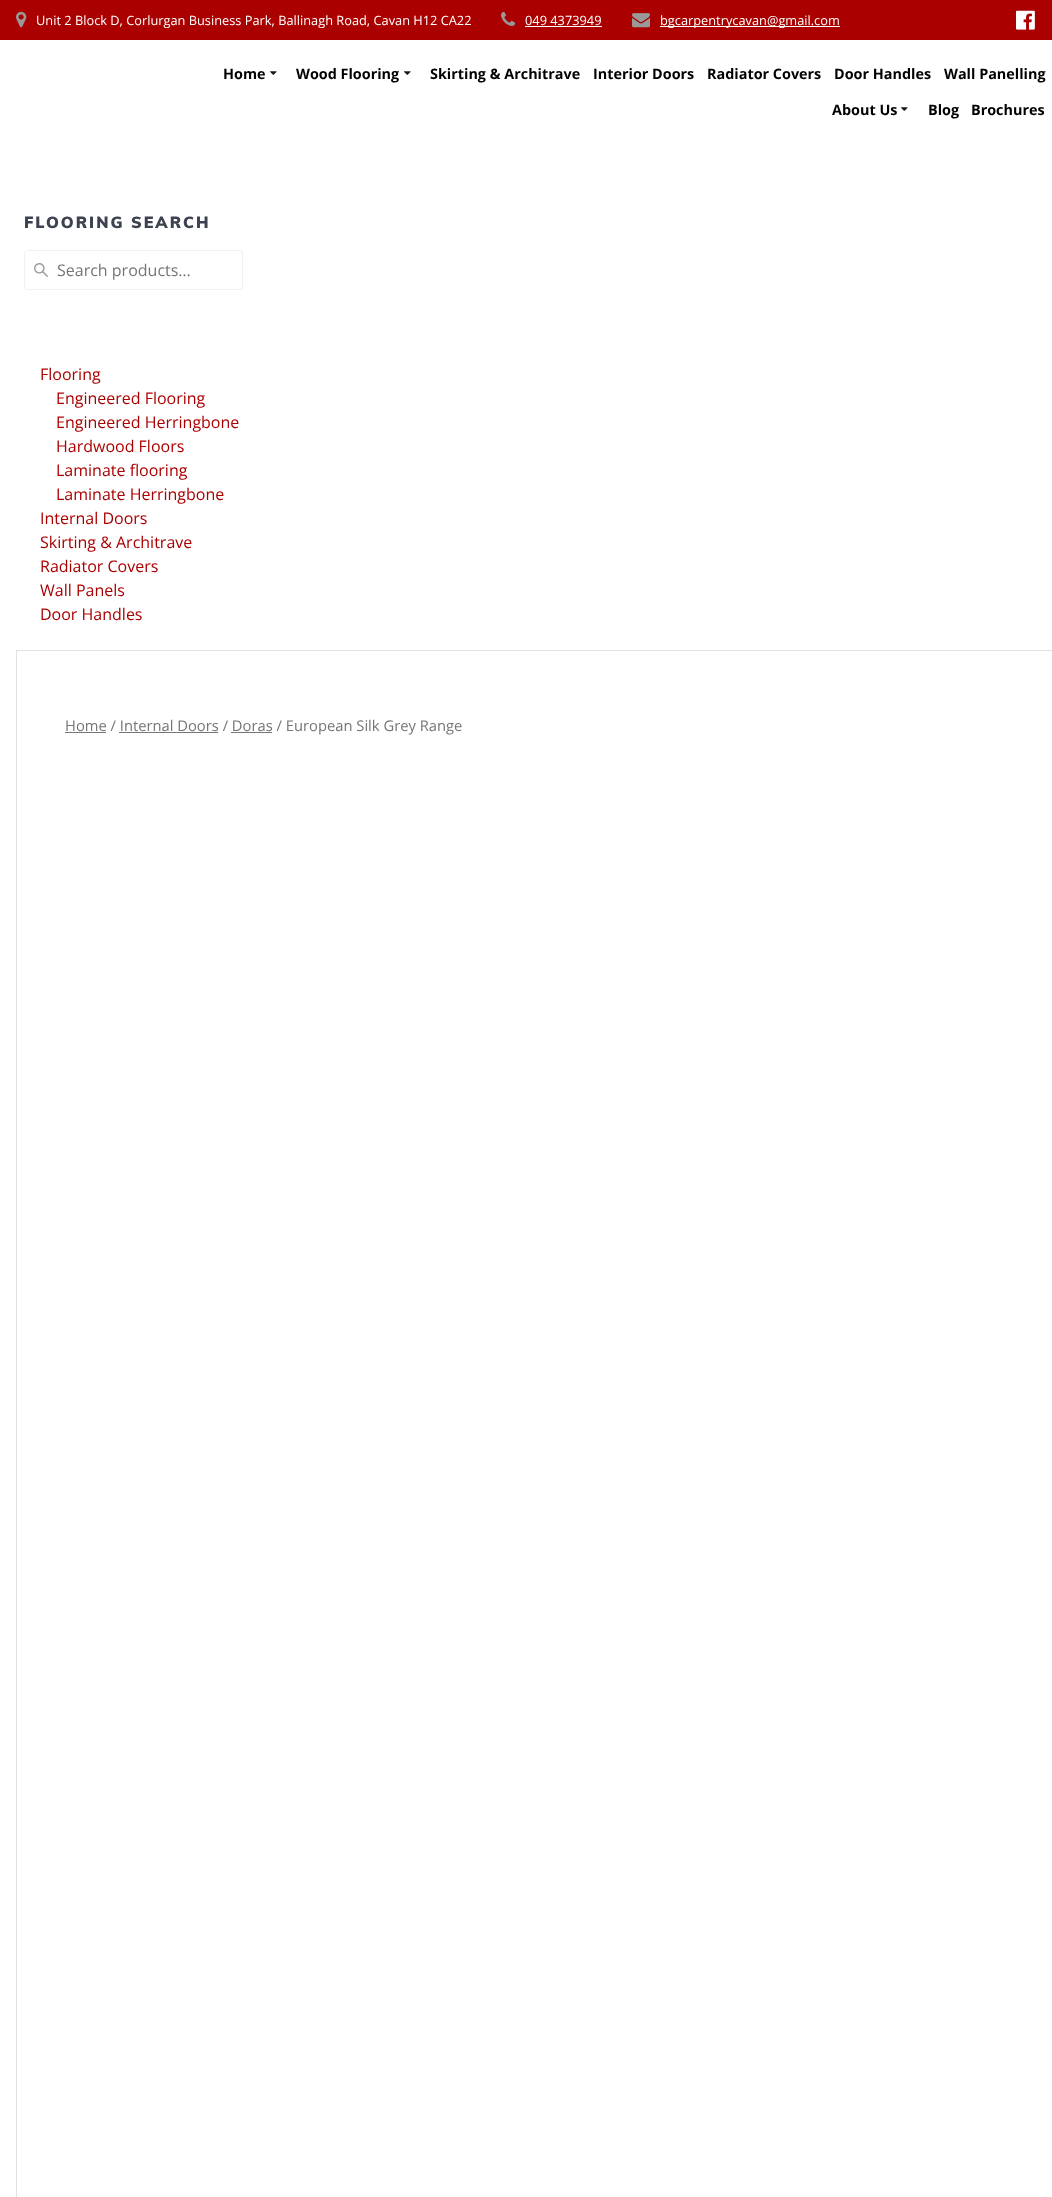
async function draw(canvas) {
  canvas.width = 1052;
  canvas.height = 2197;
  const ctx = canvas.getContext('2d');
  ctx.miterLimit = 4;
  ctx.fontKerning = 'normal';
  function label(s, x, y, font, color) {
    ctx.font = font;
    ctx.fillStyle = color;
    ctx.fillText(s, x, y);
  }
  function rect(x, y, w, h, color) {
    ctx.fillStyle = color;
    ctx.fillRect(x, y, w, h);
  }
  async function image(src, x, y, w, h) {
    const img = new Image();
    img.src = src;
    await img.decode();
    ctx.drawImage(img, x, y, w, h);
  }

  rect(0, 0, 1052, 2197, '#fff');
  rect(0, 0, 1052, 40, '#a00');
  await image('assets/img1.png', 16, 11, 11, 17);
  label('Unit 2 Block D, Corlurgan Business Park, Ballinagh Road, Cavan H12 CA22', 36, 25, '12.8px Open Sans', '#fff');
  await image('assets/img2.png', 501, 11, 15, 15);
  label('049 4373949', 525, 25, '12.8px Open Sans', '#fff');
  rect(525, 26, 77, 1, '#fff');
  await image('assets/img3.png', 632, 13, 18, 15);
  rect(660, 26, 180, 1, '#fff');
  label('bgcarpentrycavan@gmail.com', 660, 25, '12.8px Open Sans', '#fff');
  await image('assets/img4.png', 1016, 10, 19, 20);
  label('Home', 223, 79, 'bold 14.4px Open Sans', '#000');
  await image('assets/img5.png', 270, 71, 7, 4);
  label('Wood Flooring', 296, 79, 'bold 14.4px Open Sans', '#000');
  await image('assets/img5.png', 404, 71, 7, 4);
  label('Skirting & Architrave', 430, 79, 'bold 14.4px Open Sans', '#000');
  label('Interior Doors', 593, 79, 'bold 14.4px Open Sans', '#000');
  label('Radiator Covers', 707, 79, 'bold 14.4px Open Sans', '#000');
  label('Door Handles', 834, 79, 'bold 14.4px Open Sans', '#000');
  label('Wall Panelling', 944, 79, 'bold 14.4px Open Sans', '#000');
  label('About Us', 832, 115, 'bold 14.4px Open Sans', '#000');
  await image('assets/img5.png', 901, 107, 7, 4);
  label('Blog', 928, 115, 'bold 14.4px Open Sans', '#000');
  label('Brochures', 971, 115, 'bold 14.4px Open Sans', '#000');
  ctx.letterSpacing = '2px';
  label('FLOORING SEARCH', 24, 228, '900 16px Muli', '#3c424f');
  await image('assets/img6.png', 34, 263, 14, 14);
  ctx.beginPath();
  ctx.roundRect(24.5, 250.5, 218, 39, 2.5);
  ctx.strokeStyle = '#f1f1f1';
  ctx.stroke();
  ctx.letterSpacing = '0px';
  label('Search products…', 57, 276, '16px Open Sans', '#757575');
  label('Flooring', 40, 380, '16px Open Sans', '#a00');
  label('Engineered Flooring', 56, 404, '16px Open Sans', '#a00');
  label('Engineered Herringbone', 56, 428, '16px Open Sans', '#a00');
  label('Hardwood Floors', 56, 452, '16px Open Sans', '#a00');
  label('Laminate flooring', 56, 476, '16px Open Sans', '#a00');
  label('Laminate Herringbone', 56, 500, '16px Open Sans', '#a00');
  label('Internal Doors', 40, 524, '16px Open Sans', '#a00');
  label('Skirting & Architrave', 40, 548, '16px Open Sans', '#a00');
  label('Radiator Covers', 40, 572, '16px Open Sans', '#a00');
  label('Wall Panels', 40, 596, '16px Open Sans', '#a00');
  label('Door Handles', 40, 620, '16px Open Sans', '#a00');
  ctx.strokeStyle = '#e0e1e1';
  ctx.strokeRect(16.5, 650.5, 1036, 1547);
  rect(65, 732, 41, 1, '#767676');
  label('Home / Internal Doors / Doras / European Silk Grey Range', 65, 731, '14.75px Open Sans', '#757575');
  rect(119, 732, 99, 1, '#767676');
  rect(231, 732, 41, 1, '#767676');
}

draw(document.querySelector('canvas'));
